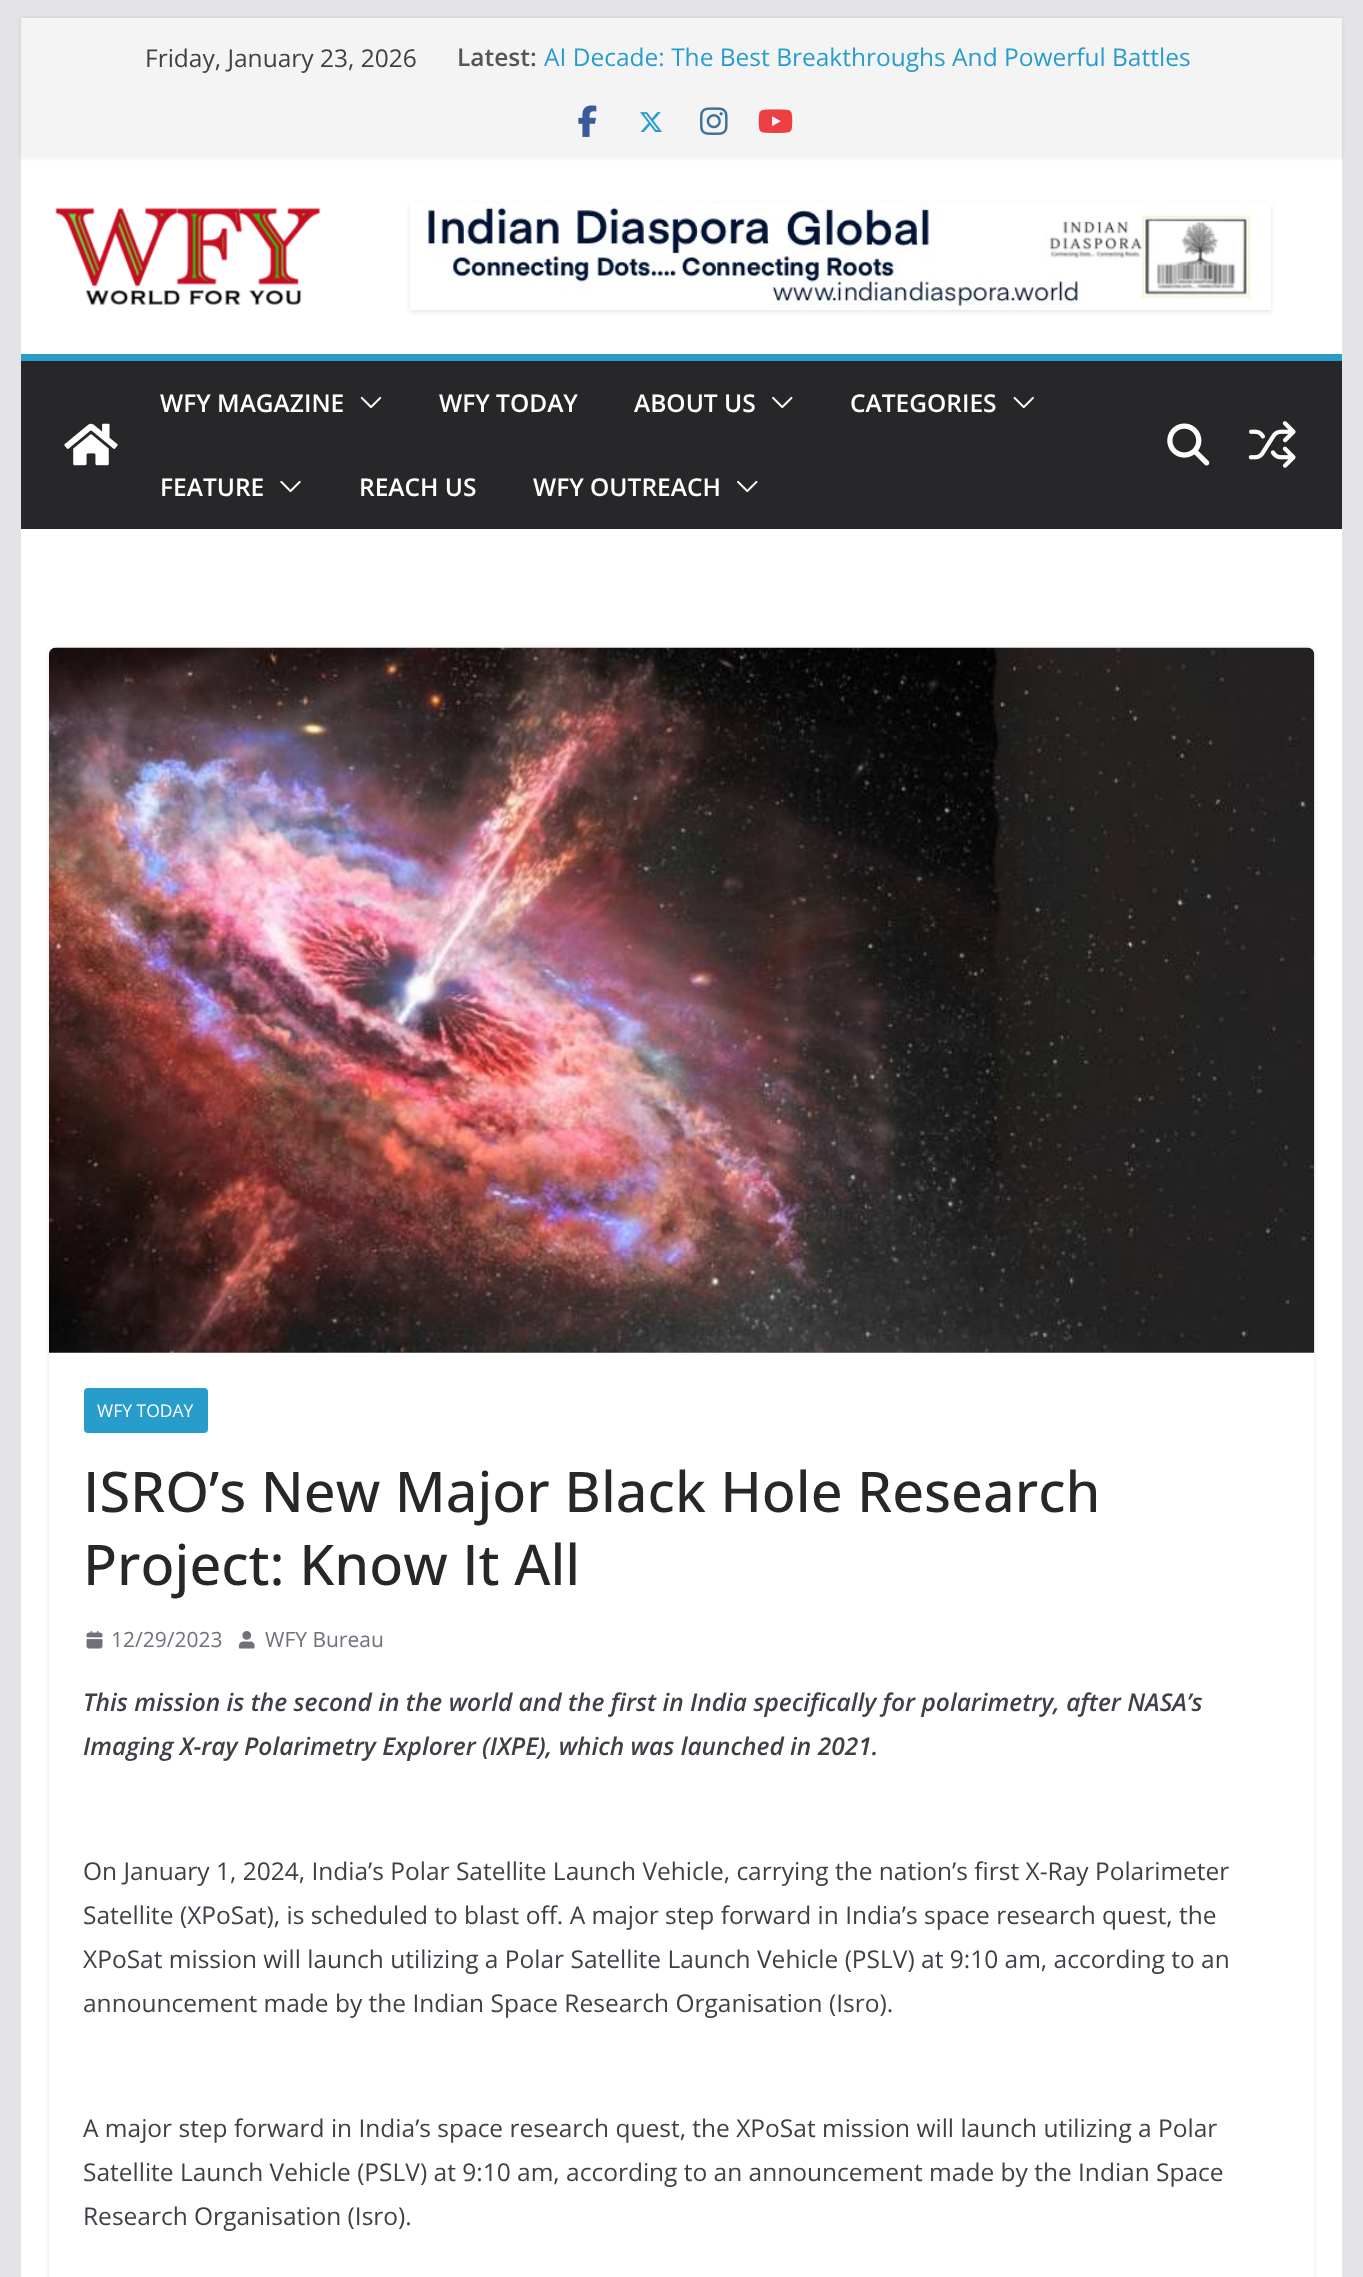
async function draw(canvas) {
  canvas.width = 1363;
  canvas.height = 2277;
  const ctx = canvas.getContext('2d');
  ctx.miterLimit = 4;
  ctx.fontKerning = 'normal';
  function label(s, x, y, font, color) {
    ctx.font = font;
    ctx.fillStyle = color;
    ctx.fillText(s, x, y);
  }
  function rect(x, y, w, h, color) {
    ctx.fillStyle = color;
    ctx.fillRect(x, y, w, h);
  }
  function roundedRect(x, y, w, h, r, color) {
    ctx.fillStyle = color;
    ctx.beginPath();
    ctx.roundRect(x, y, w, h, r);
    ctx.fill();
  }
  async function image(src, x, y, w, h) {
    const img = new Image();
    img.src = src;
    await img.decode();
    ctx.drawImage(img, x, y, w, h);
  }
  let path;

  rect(0, 0, 1363, 2277, '#e4e4e7');
  rect(21, 158, 1321, 196, '#fff');
  ctx.fillStyle = '#0000001a';
  ctx.filter = 'blur(2px)';
  ctx.beginPath();
  ctx.rect(21, 18, 1321, 140);
  ctx.fill();
  ctx.filter = 'none';
  rect(21, 18, 1321, 140, '#f4f4f5');
  label('Friday, January 23, 2026', 145, 67, '24.5px Open Sans', '#3f3f46');
  label('Latest:', 457, 66, '600 24.5px Open Sans', '#555');
  label('AI Decade: The Best Breakthroughs And Powerful Battles', 544, 66, '24.5px Open Sans', '#289dcc');
  await image('assets/img1.png', 578, 105, 19, 32);
  await image('assets/img2.png', 640, 112, 22, 20);
  await image('assets/img3.png', 700, 107, 28, 28);
  await image('assets/img4.png', 758, 109, 35, 24);
  await image('assets/img5.png', 55, 207, 266, 98);
  ctx.save();
  path = new Path2D('M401 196H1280V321H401ZM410 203H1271V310H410Z');
  ctx.clip(path, 'evenodd');
  ctx.fillStyle = '#0000001a';
  ctx.filter = 'blur(2.5px)';
  ctx.beginPath();
  ctx.rect(410, 205, 861, 107);
  ctx.fill();
  ctx.filter = 'none';
  ctx.restore();
  await image('assets/img6.png', 415, 203, 851, 107);
  rect(21, 361, 1321, 168, '#27272a');
  rect(21, 354, 1321, 7, '#289dcc');
  await image('assets/img7.png', 64, 423, 54, 43);
  label('WFY MAGAZINE', 160, 412, '600 24.5px Open Sans', '#fff');
  await image('assets/img8.png', 360, 396, 22, 13);
  label('WFY TODAY', 439, 412, '600 24.5px Open Sans', '#fff');
  label('ABOUT US', 634, 412, '600 24.5px Open Sans', '#fff');
  await image('assets/img9.png', 772, 396, 21, 13);
  label('CATEGORIES', 850, 412, '600 24.5px Open Sans', '#fff');
  await image('assets/img10.png', 1013, 396, 21, 13);
  label('FEATURE', 160, 496, '600 24.5px Open Sans', '#fff');
  await image('assets/img11.png', 280, 480, 21, 13);
  label('REACH US', 359, 496, '600 24.5px Open Sans', '#fff');
  label('WFY OUTREACH', 533, 496, '600 24.5px Open Sans', '#fff');
  await image('assets/img9.png', 737, 480, 21, 13);
  await image('assets/img12.png', 1167, 423, 43, 43);
  await image('assets/img13.png', 1248, 421, 48, 47);
  rect(21, 529, 1321, 1748, '#fff');
  ctx.save();
  path = new Path2D('M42 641H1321V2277H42ZM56 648H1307C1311 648 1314 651 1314 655V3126C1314 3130 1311 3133 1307 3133H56C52 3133 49 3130 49 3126V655C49 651 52 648 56 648Z');
  ctx.clip(path, 'evenodd');
  ctx.fillStyle = '#e4e4e7';
  ctx.filter = 'blur(2px)';
  ctx.beginPath();
  ctx.roundRect(49, 648, 1265, 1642, 7);
  ctx.fill();
  ctx.filter = 'none';
  ctx.restore();
  await image('assets/img14.png', 49, 647, 1266, 706);
  roundedRect(84, 1388, 124, 45, 4, '#289dcc');
  label('WFY TODAY', 97, 1417, '17.5px Open Sans', '#fff');
  label('ISRO’s New Major Black Hole Research', 83, 1512, '500 56px Open Sans', '#27272a');
  label('Project: Know It All', 83, 1585, '500 56px Open Sans', '#27272a');
  await image('assets/img15.png', 86, 1631, 17, 18);
  label('12/29/2023', 111, 1647, '21px Open Sans', '#71717a');
  await image('assets/img16.png', 238, 1631, 17, 18);
  label('WFY Bureau', 265, 1647, '21px Open Sans', '#71717a');
  label('This mission is the second in the world and the first in India specifically for polarimetry, after NASA’s', 83, 1711, 'italic 600 24.5px Open Sans', '#3f3f46');
  label('Imaging X-ray Polarimetry Explorer (IXPE), which was launched in 2021.', 83, 1755, 'italic 600 24.5px Open Sans', '#3f3f46');
  label('On January 1, 2024, India’s Polar Satellite Launch Vehicle, carrying the nation’s first X-Ray Polarimeter', 83, 1880, '24.5px Open Sans', '#3f3f46');
  label('Satellite (XPoSat), is scheduled to blast off. A major step forward in India’s space research quest, the', 83, 1924, '24.5px Open Sans', '#3f3f46');
  label('XPoSat mission will launch utilizing a Polar Satellite Launch Vehicle (PSLV) at 9:10 am, according to an', 83, 1968, '24.5px Open Sans', '#3f3f46');
  label('announcement made by the Indian Space Research Organisation (Isro).', 83, 2012, '24.5px Open Sans', '#3f3f46');
  label('A major step forward in India’s space research quest, the XPoSat mission will launch utilizing a Polar', 83, 2137, '24.5px Open Sans', '#3f3f46');
  label('Satellite Launch Vehicle (PSLV) at 9:10 am, according to an announcement made by the Indian Space', 83, 2181, '24.5px Open Sans', '#3f3f46');
  label('Research Organisation (Isro).', 83, 2225, '24.5px Open Sans', '#3f3f46');
}

draw(document.querySelector('canvas'));
